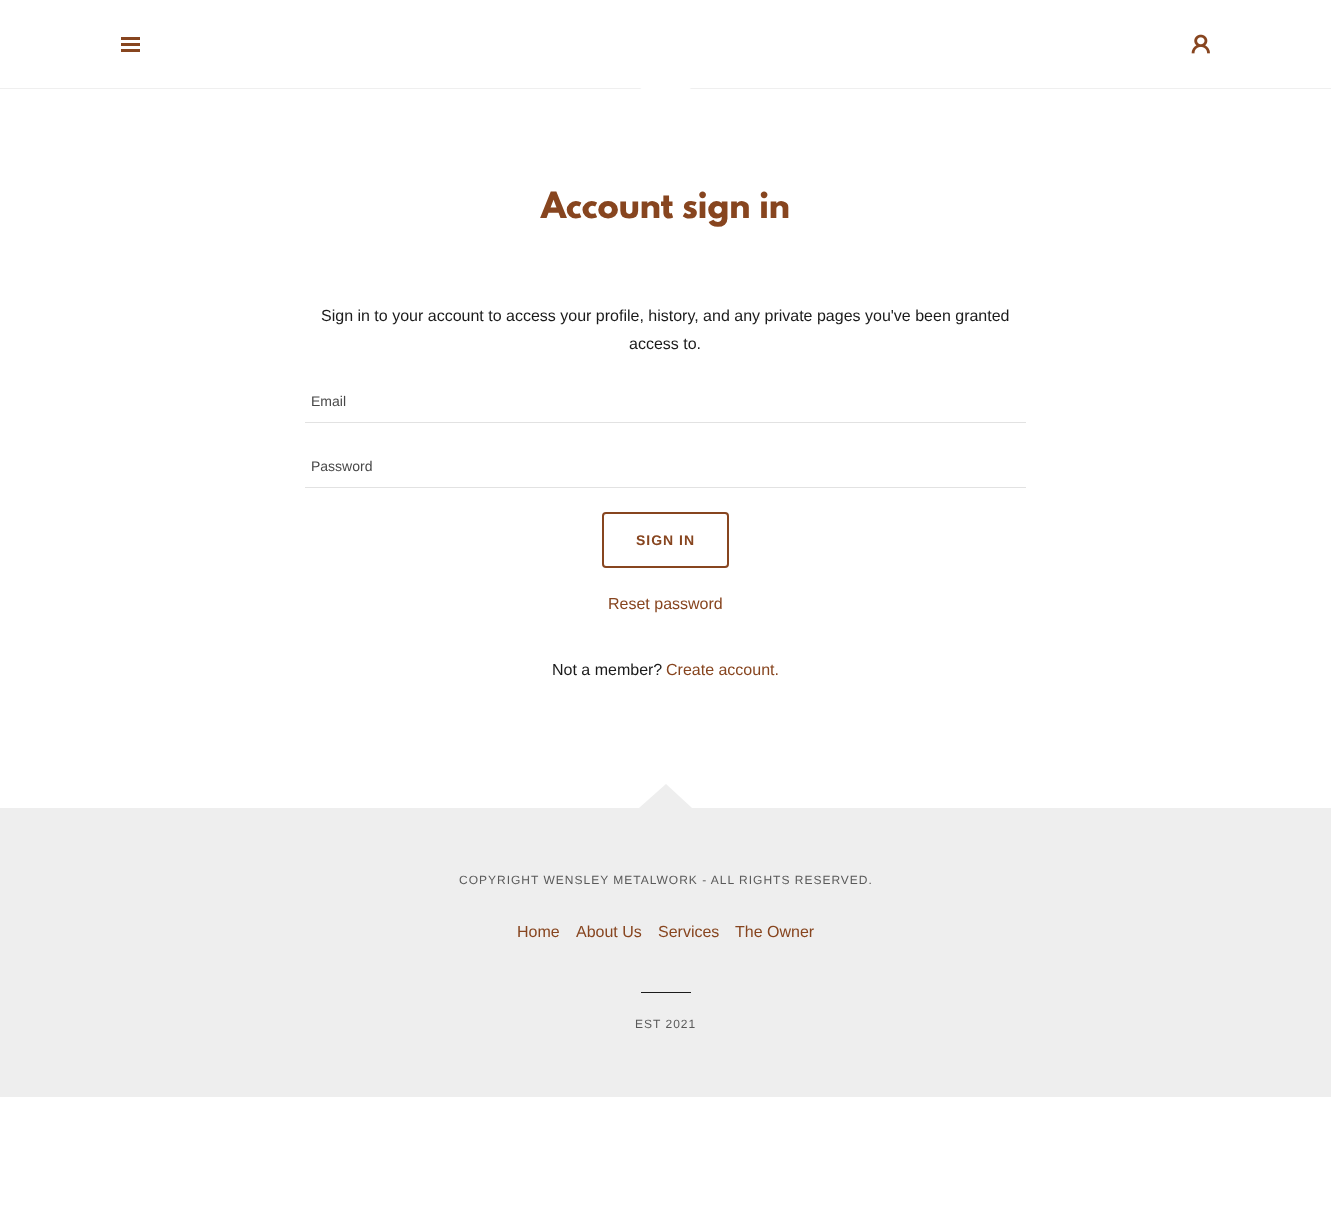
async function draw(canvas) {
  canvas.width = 1331;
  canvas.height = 1221;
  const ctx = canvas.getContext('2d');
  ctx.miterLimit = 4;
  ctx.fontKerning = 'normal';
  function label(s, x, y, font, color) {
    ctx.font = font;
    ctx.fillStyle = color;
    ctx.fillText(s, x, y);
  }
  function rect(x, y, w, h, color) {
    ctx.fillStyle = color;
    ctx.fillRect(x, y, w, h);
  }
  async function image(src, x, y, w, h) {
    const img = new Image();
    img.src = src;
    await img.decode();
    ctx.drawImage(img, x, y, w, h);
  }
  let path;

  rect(0, 0, 1331, 1221, '#fff');
  rect(0, 88, 1331, 1, '#efefef');
  rect(121, 37, 19, 3, '#87451f');
  rect(121, 43, 19, 3, '#87451f');
  rect(121, 49, 19, 3, '#87451f');
  await image('assets/img1.png', 1191, 34, 19, 20);
  ctx.fillStyle = '#fff';
  path = new Path2D('M666 111L692 87H639Z');
  ctx.fill(path, 'evenodd');
  label('Account sign in', 541, 218, 'bold 32px League Spartan', '#87451f');
  label('Sign in to your account to access your profile, history, and any private pages you\'ve been granted', 321, 321, '16px Liberation Sans', '#1b1b1b');
  label('access to.', 629, 349, '16px Liberation Sans', '#1b1b1b');
  rect(305, 422, 721, 1, '#e2e2e2');
  label('Email', 311, 406, '14px Liberation Sans', '#474747');
  rect(305, 487, 721, 1, '#e2e2e2');
  label('Password', 311, 471, '14px Liberation Sans', '#474747');
  ctx.beginPath();
  ctx.roundRect(603, 513, 125, 54, 3);
  ctx.strokeStyle = '#87451f';
  ctx.lineWidth = 2;
  ctx.stroke();
  ctx.letterSpacing = '1px';
  label('SIGN IN', 636, 545, 'bold 14px Liberation Sans', '#87451f');
  ctx.letterSpacing = '0px';
  label('Reset password', 608, 609, '16px Liberation Sans', '#87451f');
  label('Not a member?', 552, 675, '16px Liberation Sans', '#1b1b1b');
  label('Create account.', 666, 675, '16px Liberation Sans', '#87451f');
  ctx.fillStyle = '#eee';
  path = new Path2D('M666 784L639 808H692Z');
  ctx.fill(path, 'evenodd');
  rect(0, 808, 1331, 289, '#eee');
  ctx.letterSpacing = '1px';
  label('COPYRIGHT WENSLEY METALWORK - ALL RIGHTS RESERVED.', 459, 884, '12px Liberation Sans', '#595959');
  ctx.letterSpacing = '0px';
  label('Home', 517, 937, '16px Liberation Sans', '#87451f');
  label('About Us', 576, 937, '16px Liberation Sans', '#87451f');
  label('Services', 658, 937, '16px Liberation Sans', '#87451f');
  label('The Owner', 735, 937, '16px Liberation Sans', '#87451f');
  rect(641, 992, 50, 1, '#1b1b1b');
  ctx.letterSpacing = '1px';
  label('EST 2021', 635, 1028, '12px Liberation Sans', '#595959');
}

draw(document.querySelector('canvas'));
